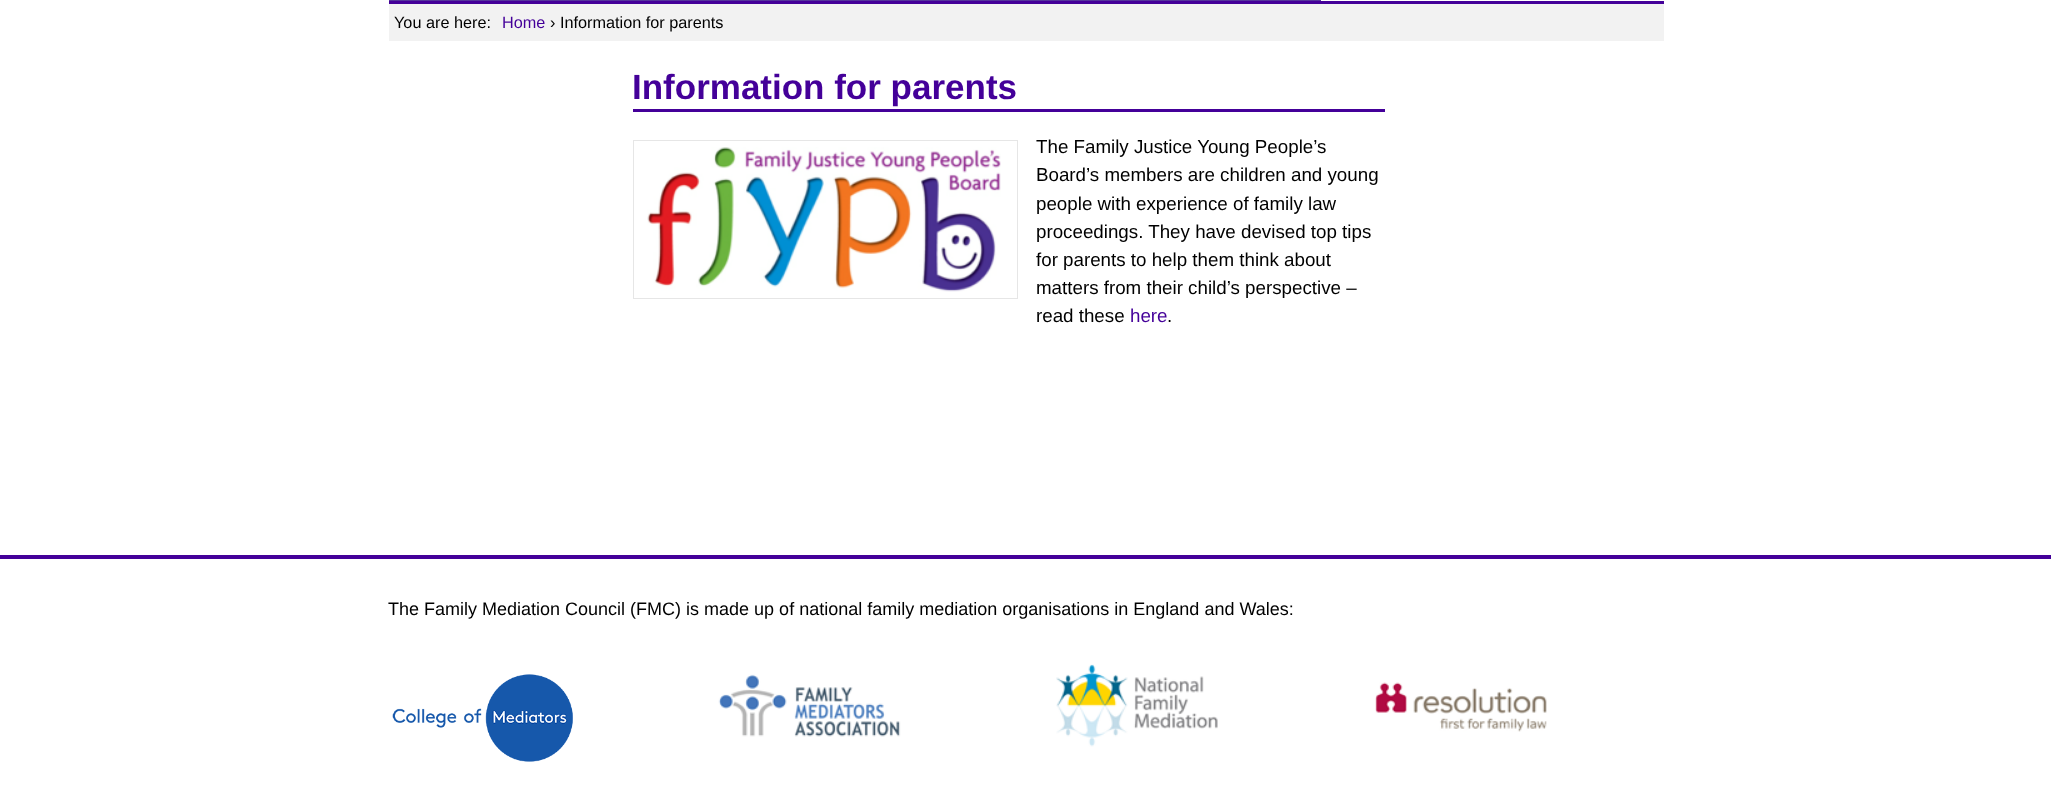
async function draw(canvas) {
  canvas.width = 2051;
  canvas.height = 797;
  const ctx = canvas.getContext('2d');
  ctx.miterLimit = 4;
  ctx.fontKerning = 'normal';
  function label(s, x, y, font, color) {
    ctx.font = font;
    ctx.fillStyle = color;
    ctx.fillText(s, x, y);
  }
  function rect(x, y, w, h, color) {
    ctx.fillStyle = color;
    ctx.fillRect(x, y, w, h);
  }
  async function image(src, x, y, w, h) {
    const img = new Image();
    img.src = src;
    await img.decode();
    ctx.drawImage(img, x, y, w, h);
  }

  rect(0, 0, 2051, 797, '#fff');
  rect(389, 0, 932, 1, '#55369c');
  rect(389, 4, 1275, 37, '#f2f2f2');
  rect(389, 1, 1275, 3, '#409');
  label('You are here:', 394, 28, '16.25px Liberation Sans', '#000');
  label('Home', 502, 28, '16.25px Liberation Sans', '#409');
  label('› Information for parents', 550, 28, '16.25px Liberation Sans', '#000');
  rect(633, 109, 752, 3, '#409');
  label('Information for parents', 632, 99, 'bold 35px Liberation Sans', '#409');
  ctx.strokeStyle = '#e6e6e6';
  ctx.strokeRect(633.5, 140.5, 384, 158);
  await image('assets/img1.png', 647, 147, 354, 145);
  label('The Family Justice Young People’s', 1036, 153, '18.75px Liberation Sans', '#000');
  label('Board’s members are children and young', 1036, 181, '18.75px Liberation Sans', '#000');
  label('people with experience of family law', 1036, 210, '18.75px Liberation Sans', '#000');
  label('proceedings. They have devised top tips', 1036, 238, '18.75px Liberation Sans', '#000');
  label('for parents to help them think about', 1036, 266, '18.75px Liberation Sans', '#000');
  label('matters from their child’s perspective –', 1036, 294, '18.75px Liberation Sans', '#000');
  label('read these', 1036, 322, '18.75px Liberation Sans', '#000');
  label('here', 1130, 322, '18.75px Liberation Sans', '#409');
  label('.', 1167, 322, '18.75px Liberation Sans', '#000');
  rect(0, 555, 2051, 4, '#409');
  label('The Family Mediation Council (FMC) is made up of national family mediation organisations in England and Wales:', 388, 615, '18px Liberation Sans', '#000');
  await image('assets/img2.png', 392, 674, 181, 88);
  await image('assets/img3.png', 718, 674, 183, 63);
  await image('assets/img4.png', 1056, 664, 162, 83);
  await image('assets/img5.png', 1375, 682, 172, 50);
}

draw(document.querySelector('canvas'));
